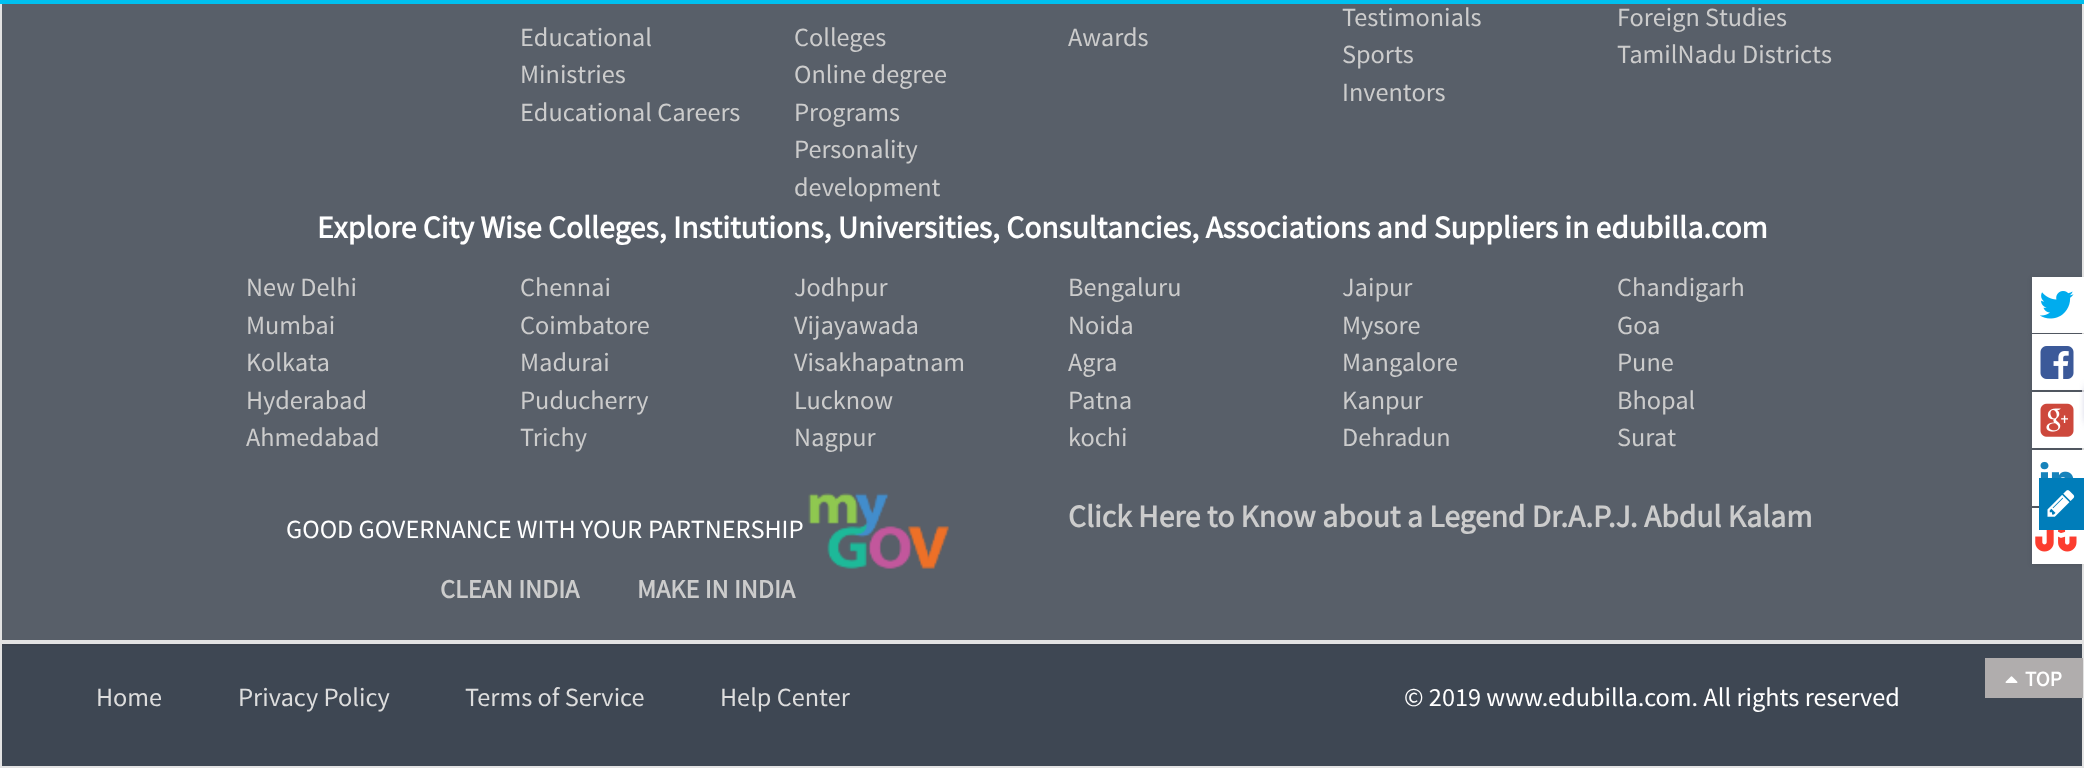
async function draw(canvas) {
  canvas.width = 2084;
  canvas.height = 768;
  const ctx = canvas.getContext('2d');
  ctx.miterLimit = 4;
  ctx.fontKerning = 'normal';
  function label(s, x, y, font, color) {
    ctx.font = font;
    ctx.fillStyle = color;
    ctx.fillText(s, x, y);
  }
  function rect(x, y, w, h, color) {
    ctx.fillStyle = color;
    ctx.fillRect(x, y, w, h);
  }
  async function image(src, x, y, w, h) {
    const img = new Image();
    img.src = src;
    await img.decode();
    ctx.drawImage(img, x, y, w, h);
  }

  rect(0, 0, 2084, 768, '#585f69');
  ctx.strokeStyle = '#e3e3e3';
  ctx.lineWidth = 2;
  ctx.strokeRect(1, -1, 2082, 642);
  rect(0, 0, 2084, 4, '#00c0ef');
  label('Educational', 520, 46, '26.25px Source Sans Pro', '#ccc');
  label('Ministries', 520, 83, '26.25px Source Sans Pro', '#ccc');
  label('Educational Careers', 520, 121, '26.25px Source Sans Pro', '#ccc');
  label('Colleges', 794, 46, '26.25px Source Sans Pro', '#ccc');
  label('Online degree', 794, 83, '26.25px Source Sans Pro', '#ccc');
  label('Programs', 794, 121, '26.25px Source Sans Pro', '#ccc');
  label('Personality', 794, 158, '26.25px Source Sans Pro', '#ccc');
  label('development', 794, 196, '26.25px Source Sans Pro', '#ccc');
  label('Awards', 1068, 46, '26.25px Source Sans Pro', '#ccc');
  label('Testimonials', 1342, 26, '26.25px Source Sans Pro', '#ccc');
  label('Sports', 1342, 63, '26.25px Source Sans Pro', '#ccc');
  label('Inventors', 1342, 101, '26.25px Source Sans Pro', '#ccc');
  label('Foreign Studies', 1617, 26, '26.25px Source Sans Pro', '#ccc');
  label('TamilNadu Districts', 1617, 63, '26.25px Source Sans Pro', '#ccc');
  label('Explore City Wise Colleges, Institutions, Universities, Consultancies, Associations and Suppliers in edubilla.com', 317, 238, 'bold 31.5px Source Sans Pro', '#fff');
  label('New Delhi', 246, 296, '26.25px Source Sans Pro', '#ccc');
  label('Mumbai', 246, 334, '26.25px Source Sans Pro', '#ccc');
  label('Kolkata', 246, 371, '26.25px Source Sans Pro', '#ccc');
  label('Hyderabad', 246, 409, '26.25px Source Sans Pro', '#ccc');
  label('Ahmedabad', 246, 446, '26.25px Source Sans Pro', '#ccc');
  label('Chennai', 520, 296, '26.25px Source Sans Pro', '#ccc');
  label('Coimbatore', 520, 334, '26.25px Source Sans Pro', '#ccc');
  label('Madurai', 520, 371, '26.25px Source Sans Pro', '#ccc');
  label('Puducherry', 520, 409, '26.25px Source Sans Pro', '#ccc');
  label('Trichy', 520, 446, '26.25px Source Sans Pro', '#ccc');
  label('Jodhpur', 794, 296, '26.25px Source Sans Pro', '#ccc');
  label('Vijayawada', 794, 334, '26.25px Source Sans Pro', '#ccc');
  label('Visakhapatnam', 794, 371, '26.25px Source Sans Pro', '#ccc');
  label('Lucknow', 794, 409, '26.25px Source Sans Pro', '#ccc');
  label('Nagpur', 794, 446, '26.25px Source Sans Pro', '#ccc');
  label('Bengaluru', 1068, 296, '26.25px Source Sans Pro', '#ccc');
  label('Noida', 1068, 334, '26.25px Source Sans Pro', '#ccc');
  label('Agra', 1068, 371, '26.25px Source Sans Pro', '#ccc');
  label('Patna', 1068, 409, '26.25px Source Sans Pro', '#ccc');
  label('kochi', 1068, 446, '26.25px Source Sans Pro', '#ccc');
  label('Jaipur', 1342, 296, '26.25px Source Sans Pro', '#ccc');
  label('Mysore', 1342, 334, '26.25px Source Sans Pro', '#ccc');
  label('Mangalore', 1342, 371, '26.25px Source Sans Pro', '#ccc');
  label('Kanpur', 1342, 409, '26.25px Source Sans Pro', '#ccc');
  label('Dehradun', 1342, 446, '26.25px Source Sans Pro', '#ccc');
  label('Chandigarh', 1617, 296, '26.25px Source Sans Pro', '#ccc');
  label('Goa', 1617, 334, '26.25px Source Sans Pro', '#ccc');
  label('Pune', 1617, 371, '26.25px Source Sans Pro', '#ccc');
  label('Bhopal', 1617, 409, '26.25px Source Sans Pro', '#ccc');
  label('Surat', 1617, 446, '26.25px Source Sans Pro', '#ccc');
  label('GOOD GOVERNANCE WITH YOUR PARTNERSHIP', 286, 538, '26.25px Source Sans Pro', '#fff');
  await image('assets/img1.png', 808, 493, 141, 76);
  label('CLEAN INDIA', 440, 598, 'bold 26.25px Source Sans Pro', '#ccc');
  label('MAKE IN INDIA', 637, 598, 'bold 26.25px Source Sans Pro', '#ccc');
  label('Click Here to Know about a Legend Dr.A.P.J. Abdul Kalam', 1068, 527, 'bold 31.5px Source Sans Pro', '#ccc');
  ctx.fillStyle = '#0000001a';
  ctx.filter = 'blur(2.5px)';
  ctx.beginPath();
  ctx.rect(2032, 278, 52, 56);
  ctx.fill();
  ctx.filter = 'none';
  rect(2032, 277, 52, 56, '#fff');
  await image('assets/img2.png', 2040, 291, 34, 28);
  ctx.fillStyle = '#0000001a';
  ctx.filter = 'blur(2.5px)';
  ctx.beginPath();
  ctx.rect(2032, 336, 52, 56);
  ctx.fill();
  ctx.filter = 'none';
  rect(2032, 334, 52, 56, '#fff');
  await image('assets/img3.png', 2040, 346, 34, 33);
  ctx.fillStyle = '#0000001a';
  ctx.filter = 'blur(2.5px)';
  ctx.beginPath();
  ctx.rect(2032, 394, 52, 56);
  ctx.fill();
  ctx.filter = 'none';
  rect(2032, 392, 52, 56, '#fff');
  await image('assets/img4.png', 2040, 403, 34, 34);
  ctx.fillStyle = '#0000001a';
  ctx.filter = 'blur(2.5px)';
  ctx.beginPath();
  ctx.rect(2032, 452, 52, 56);
  ctx.fill();
  ctx.filter = 'none';
  rect(2032, 450, 52, 56, '#fff');
  await image('assets/img5.png', 2040, 461, 34, 17);
  ctx.fillStyle = '#0000001a';
  ctx.filter = 'blur(2.5px)';
  ctx.beginPath();
  ctx.rect(2032, 509, 52, 56);
  ctx.fill();
  ctx.filter = 'none';
  rect(2032, 508, 52, 56, '#fff');
  await image('assets/img6.png', 2035, 530, 42, 22);
  ctx.fillStyle = '#6565a1bf';
  ctx.filter = 'blur(4.5px)';
  ctx.beginPath();
  ctx.rect(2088, 387, 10, 35);
  ctx.fill();
  ctx.filter = 'none';
  rect(2039, 478, 45, 52, '#007dba');
  await image('assets/img7.png', 2047, 490, 28, 27);
  rect(2, 646, 2080, 120, '#3e4753');
  rect(2, 644, 2081, 2, '#3b434f');
  ctx.strokeRect(1, 643, 2082, 124);
  rect(1985, 658, 98, 40, '#b0adad');
  await image('assets/img8.png', 2005, 676, 13, 7);
  label('TOP', 2025, 686, 'bold 21px Source Sans Pro', '#fff');
  label('Home', 96, 706, '26.25px Source Sans Pro', '#ddd');
  label('Privacy Policy', 238, 706, '26.25px Source Sans Pro', '#ddd');
  label('Terms of Service', 465, 706, '26.25px Source Sans Pro', '#ddd');
  label('Help Center', 720, 706, '26.25px Source Sans Pro', '#ddd');
  label('© 2019 www.edubilla.com. All rights reserved', 1404, 706, '26.25px Source Sans Pro', '#fff');
}

draw(document.querySelector('canvas'));
